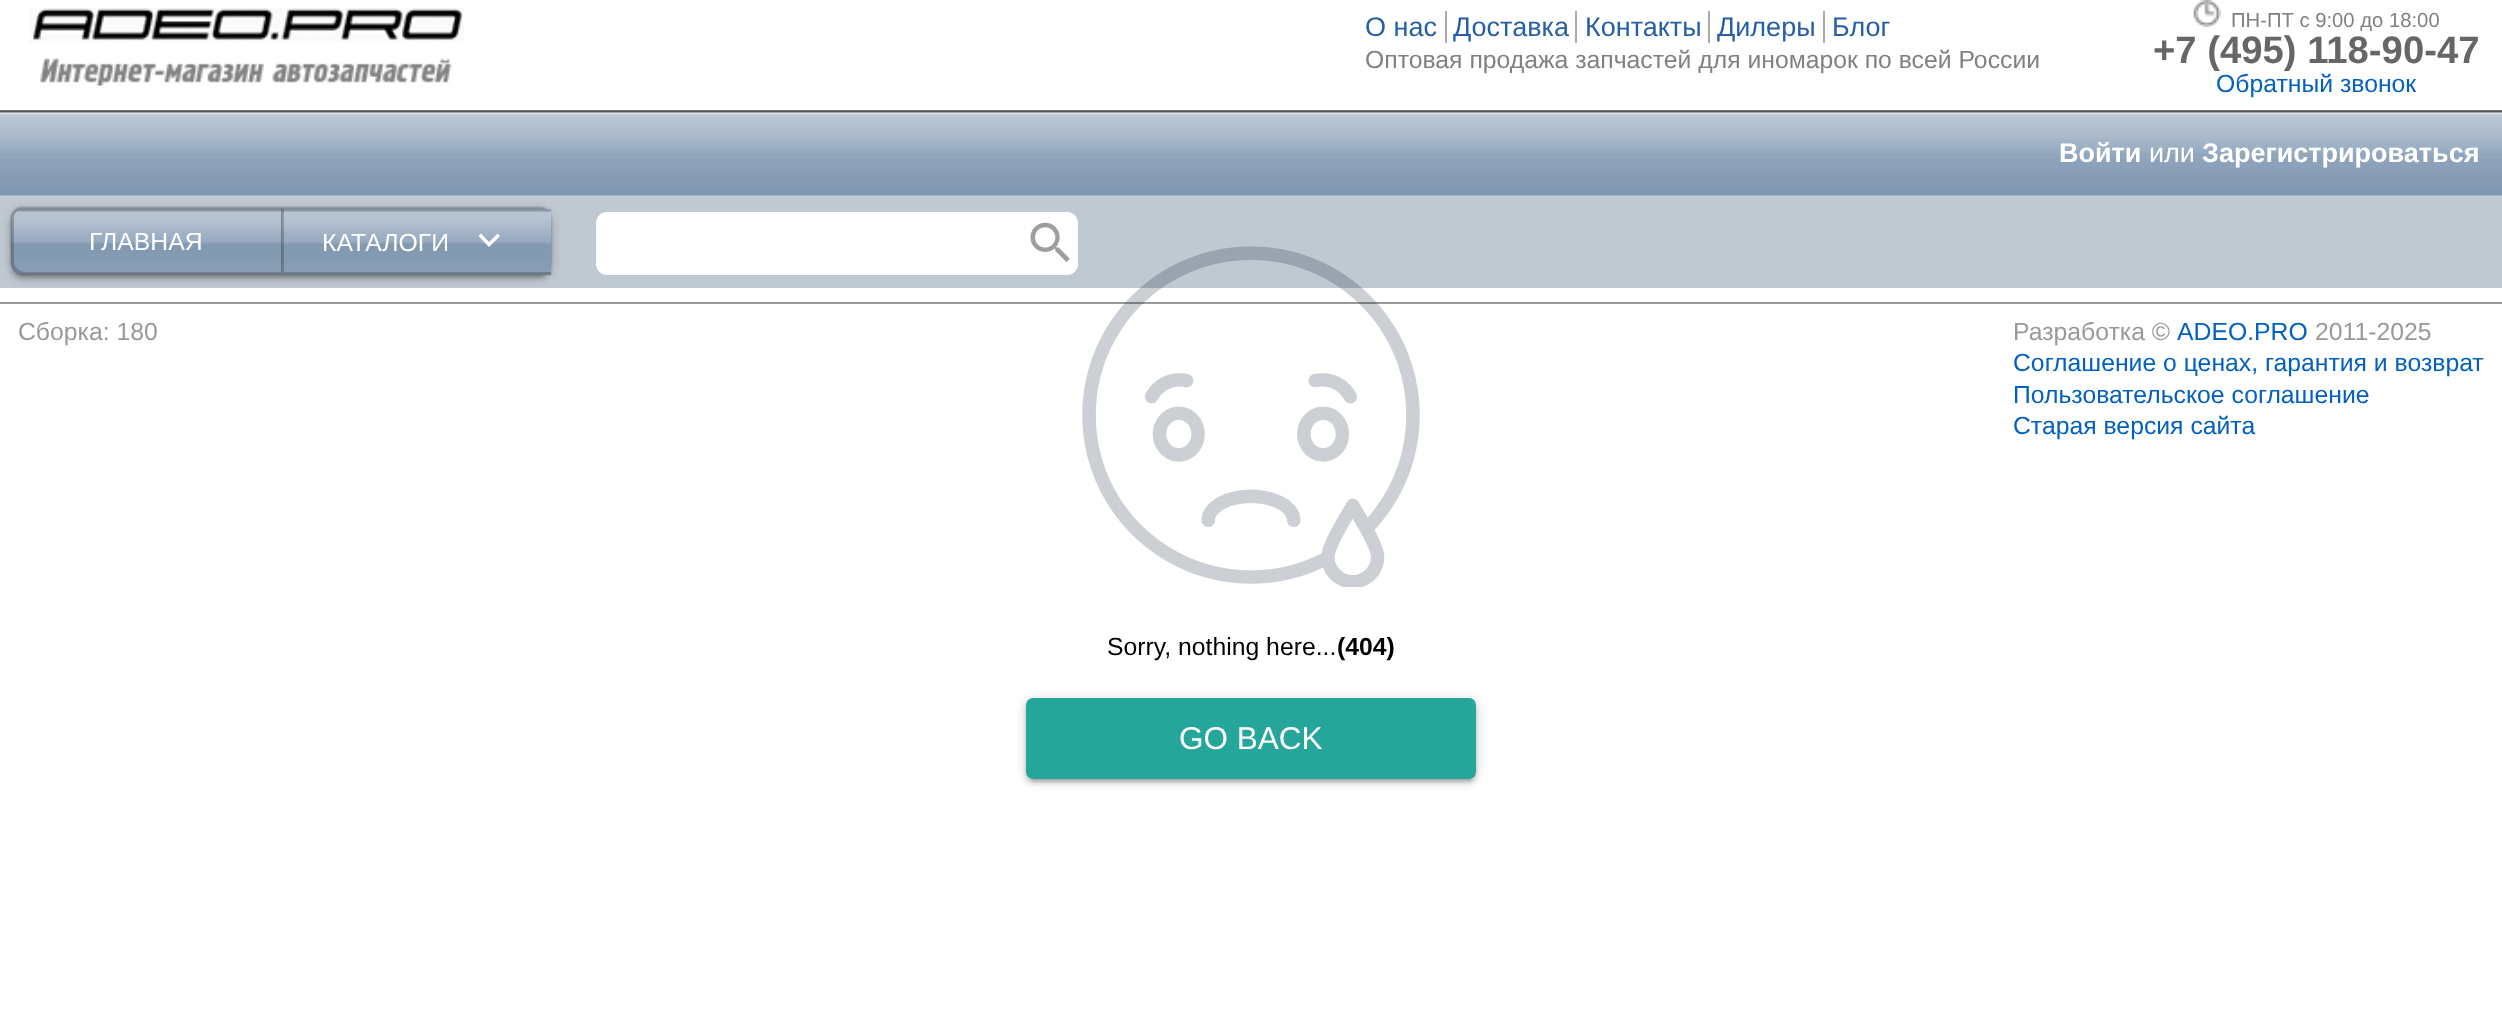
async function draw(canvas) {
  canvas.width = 2502;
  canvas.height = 1023;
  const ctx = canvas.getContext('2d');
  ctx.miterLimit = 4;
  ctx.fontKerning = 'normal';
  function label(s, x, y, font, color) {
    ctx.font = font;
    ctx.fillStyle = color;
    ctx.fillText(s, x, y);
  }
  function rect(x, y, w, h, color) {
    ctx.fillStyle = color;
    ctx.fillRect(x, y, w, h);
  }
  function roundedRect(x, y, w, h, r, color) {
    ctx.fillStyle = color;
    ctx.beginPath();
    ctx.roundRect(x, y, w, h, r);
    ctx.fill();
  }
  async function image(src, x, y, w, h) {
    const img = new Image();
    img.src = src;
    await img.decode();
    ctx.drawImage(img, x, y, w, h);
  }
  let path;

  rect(0, 0, 2502, 1023, '#fff');
  await image('assets/img1.png', 29, 8, 435, 78);
  rect(1445, 11, 2, 32, '#aaa');
  label('О нас', 1365, 36, '27px Liberation Sans', '#275fa6');
  rect(1575, 11, 2, 32, '#aaa');
  label('Доставка', 1453, 36, '27px Liberation Sans', '#275fa6');
  rect(1708, 11, 2, 32, '#aaa');
  label('Контакты', 1585, 36, '27px Liberation Sans', '#275fa6');
  rect(1823, 11, 2, 32, '#aaa');
  label('Дилеры', 1717, 36, '27px Liberation Sans', '#275fa6');
  label('Блог', 1832, 36, '27px Liberation Sans', '#275fa6');
  label('Оптовая продажа запчастей для иномарок по всей России', 1365, 68, '24.75px Liberation Sans', '#818181');
  await image('assets/img2.png', 2193, 0, 28, 27);
  label('ПН-ПТ с 9:00 до 18:00', 2231, 27, '20.25px Liberation Sans', '#818181');
  label('+7 (495) 118-90-47', 2153, 63, 'bold 38.25px Liberation Sans', '#666');
  label('Обратный звонок', 2216, 92, '24.75px Liberation Sans', '#0260c0');
  await image('assets/img3.png', 0, 110, 2502, 86);
  label('Войти', 2059, 162, 'bold 27px Liberation Sans', '#fff');
  label('или', 2149, 162, '27px Liberation Sans', '#fff');
  label('Зарегистрироваться', 2202, 162, 'bold 27px Liberation Sans', '#fff');
  rect(0, 196, 2502, 92, '#c0c8d2');
  ctx.fillStyle = '#0000004d';
  ctx.filter = 'blur(1px)';
  ctx.beginPath();
  ctx.roundRect(11, 207, 540, 65, 11);
  ctx.fill();
  ctx.filter = 'none';
  ctx.fillStyle = '#0000001f';
  ctx.filter = 'blur(1px)';
  ctx.beginPath();
  ctx.roundRect(16, 221, 531, 56, 7);
  ctx.fill();
  ctx.filter = 'none';
  ctx.fillStyle = '#00000024';
  ctx.filter = 'blur(2px)';
  ctx.beginPath();
  ctx.roundRect(11, 214, 540, 65, 11);
  ctx.fill();
  ctx.filter = 'none';
  ctx.fillStyle = '#00000033';
  ctx.filter = 'blur(5.5px)';
  ctx.beginPath();
  ctx.roundRect(11, 212, 540, 65, 11);
  ctx.fill();
  ctx.filter = 'none';
  await image('assets/img4.png', 11, 209, 271, 66);
  ctx.fillStyle = '#3232324d';
  path = new Path2D('M18 210C14 212 11 215 11 220V264C11 270 16 275 22 275H281V272H25C19 272 14 267 14 261V218C14 215 15 212 18 210Z');
  ctx.fill(path);
  label('ГЛАВНАЯ', 89, 250, '24.75px Liberation Sans', '#fff');
  await image('assets/img5.png', 281, 209, 271, 66);
  ctx.save();
  ctx.beginPath();
  ctx.rect(281, 209, 270, 66);
  ctx.clip();
  ctx.fillStyle = '#3232324d';
  path = new Path2D('M58-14H774V497H58ZM284 207H554V272H284Z');
  ctx.fill(path, 'evenodd');
  ctx.restore();
  label('КАТАЛОГИ', 322, 251, '24.75px Liberation Sans', '#fff');
  path = new Path2D('M481 233.5L489 242L497.5 233.5L500 236L489 247L478.5 236Z');
  ctx.fill(path);
  roundedRect(596, 212, 482, 63, 11, '#fff');
  await image('assets/img6.png', 1030, 222, 40, 40);
  rect(0, 302, 2502, 2, '#999');
  label('Сборка: 180', 18, 340, '24.75px Liberation Sans', '#999');
  label('Разработка ©', 2013, 340, '24.75px Liberation Sans', '#999');
  label('ADEO.PRO', 2177, 340, '24.75px Liberation Sans', '#0260c0');
  label('2011-2025', 2315, 340, '24.75px Liberation Sans', '#999');
  label('Соглашение о ценах, гарантия и возврат', 2013, 371, '24.75px Liberation Sans', '#0260c0');
  label('Пользовательское соглашение', 2013, 403, '24.75px Liberation Sans', '#0260c0');
  label('Старая версия сайта', 2013, 434, '24.75px Liberation Sans', '#0260c0');
  await image('assets/img7.png', 1082, 246, 338, 341);
  label('Sorry, nothing here...', 1107, 655, '24.75px Liberation Sans', '#000');
  label('(404)', 1337, 655, 'bold 24.75px Liberation Sans', '#000');
  roundedRect(1026, 698, 450, 81, 7, '#26a69a');
  ctx.save();
  path = new Path2D('M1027 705H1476V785H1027ZM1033 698H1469C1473 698 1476 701 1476 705V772C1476 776 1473 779 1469 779H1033C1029 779 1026 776 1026 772V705C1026 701 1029 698 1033 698Z');
  ctx.clip(path, 'evenodd');
  ctx.fillStyle = '#0000001f';
  ctx.filter = 'blur(1px)';
  ctx.beginPath();
  ctx.roundRect(1031, 709, 441, 72, 2);
  ctx.fill();
  ctx.filter = 'none';
  ctx.restore();
  ctx.save();
  path = new Path2D('M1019 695H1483V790H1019ZM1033 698H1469C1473 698 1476 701 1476 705V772C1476 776 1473 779 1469 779H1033C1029 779 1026 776 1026 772V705C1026 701 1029 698 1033 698Z');
  ctx.clip(path, 'evenodd');
  ctx.fillStyle = '#00000024';
  ctx.filter = 'blur(2px)';
  ctx.beginPath();
  ctx.roundRect(1026, 702, 450, 81, 7);
  ctx.fill();
  ctx.filter = 'none';
  ctx.restore();
  ctx.save();
  path = new Path2D('M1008 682H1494V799H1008ZM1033 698H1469C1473 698 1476 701 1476 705V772C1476 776 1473 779 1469 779H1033C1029 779 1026 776 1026 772V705C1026 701 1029 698 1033 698Z');
  ctx.clip(path, 'evenodd');
  ctx.fillStyle = '#00000033';
  ctx.filter = 'blur(5.5px)';
  ctx.beginPath();
  ctx.roundRect(1026, 700, 450, 81, 7);
  ctx.fill();
  ctx.filter = 'none';
  ctx.restore();
  label('GO BACK', 1179, 749, '31.5px Liberation Sans', '#fff');
}

draw(document.querySelector('canvas'));
